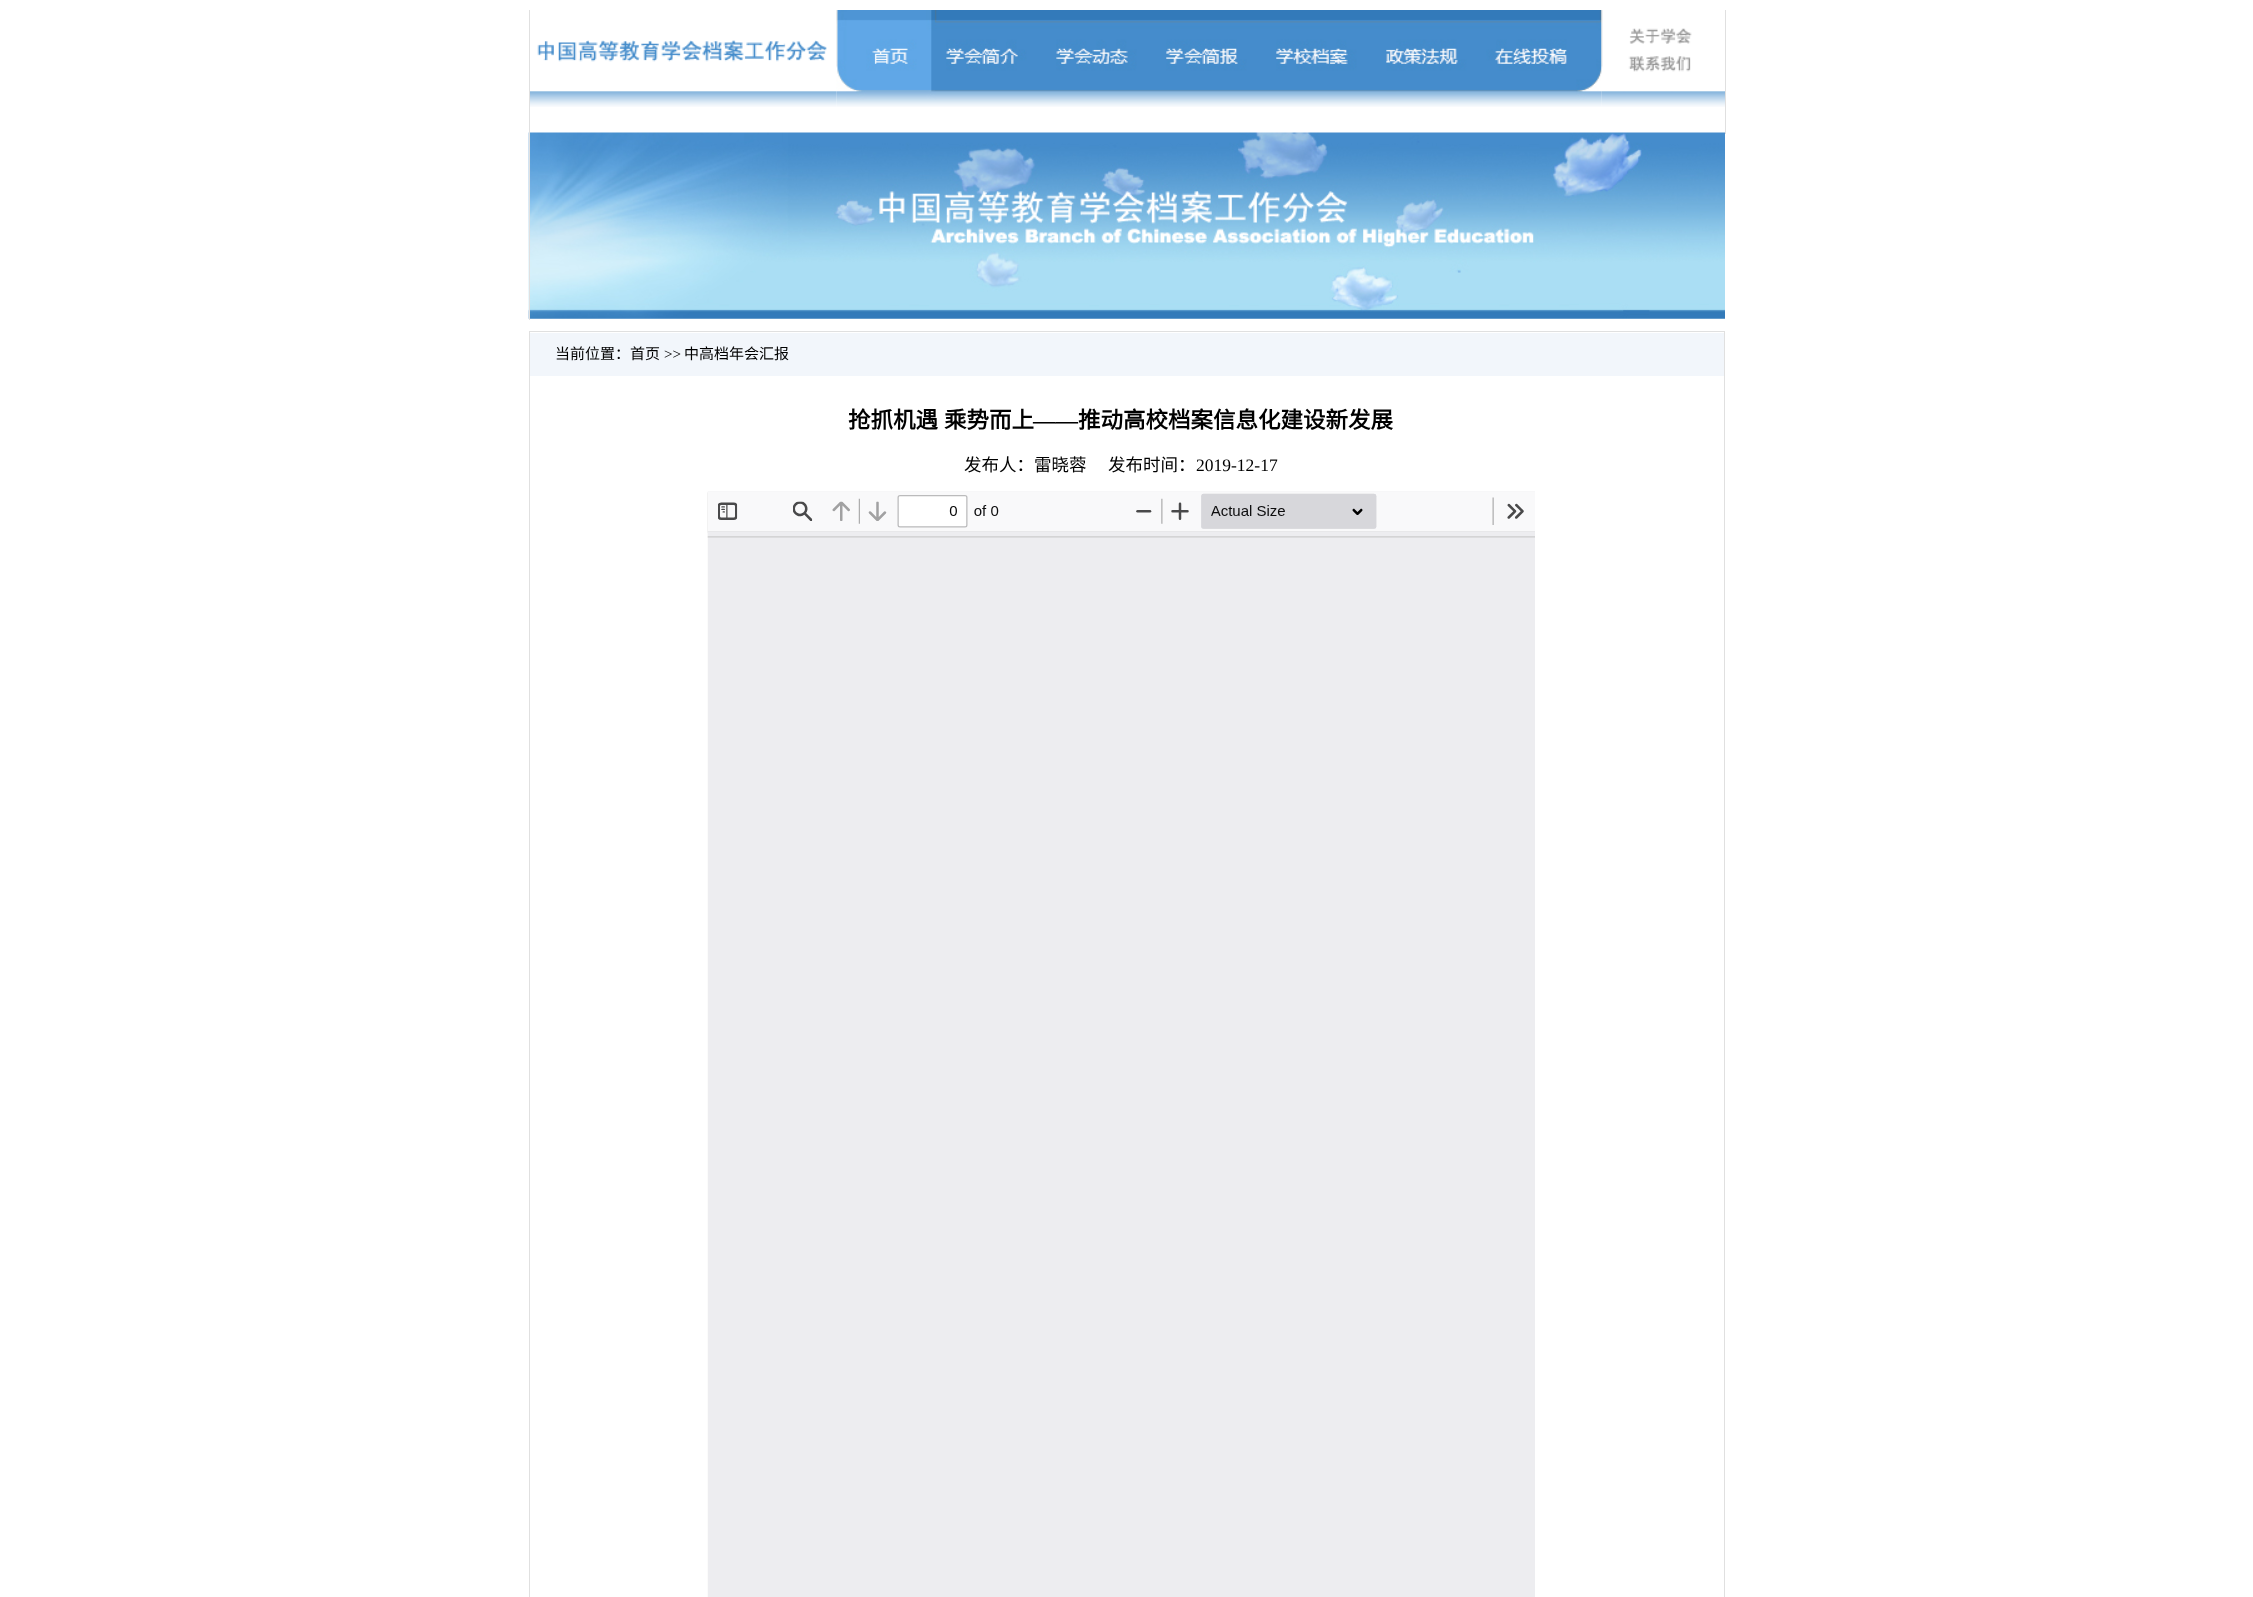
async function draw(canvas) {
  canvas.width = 2253;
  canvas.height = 1597;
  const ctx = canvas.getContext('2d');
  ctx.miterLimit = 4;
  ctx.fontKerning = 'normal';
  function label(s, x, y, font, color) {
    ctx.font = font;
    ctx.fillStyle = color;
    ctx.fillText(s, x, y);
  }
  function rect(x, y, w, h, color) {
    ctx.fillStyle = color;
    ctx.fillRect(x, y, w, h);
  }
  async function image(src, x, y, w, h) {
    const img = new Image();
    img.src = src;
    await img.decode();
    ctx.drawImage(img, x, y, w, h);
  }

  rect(0, 0, 2253, 1597, '#fff');
  rect(529, 10, 1, 101, '#e0e0e0');
  await image('assets/img1.png', 530, 40, 307, 67);
  await image('assets/img3.png', 1601, 10, 124, 97);
  await image('assets/img2.png', 836, 10, 766, 97);
  rect(1725, 10, 1, 124, '#e0e0e0');
  await image('assets/img4.png', 528, 132, 1197, 187);
  rect(529, 110, 1, 210, '#e0e0e0');
  ctx.strokeStyle = '#e0e0e0';
  ctx.strokeRect(529.5, 331.5, 1195, 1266);
  rect(530, 333, 1194, 43, '#f2f6fb');
  label('当前位置：首页', 555, 359, '15px Noto Sans CJK SC', '#000');
  label('>>', 664, 359, '15px Liberation Serif', '#000');
  label('中高档年会汇报', 684, 359, '15px Noto Sans CJK SC', '#000');
  ctx.wordSpacing = '1px';
  label('抢抓机遇 乘势而上', 848, 428, 'bold 22.5px Noto Sans CJK SC', '#000');
  ctx.wordSpacing = '0px';
  label('——', 1033, 428, 'bold 22.5px Liberation Serif', '#000');
  label('推动高校档案信息化建设新发展', 1078, 428, 'bold 22.5px Noto Sans CJK SC', '#000');
  label('发布人：雷晓蓉', 964, 471, '17.5px Noto Sans CJK SC', '#000');
  label('发布时间：', 1108, 471, '17.5px Noto Sans CJK SC', '#000');
  label('2019-12-17', 1196, 471, '17.5px Liberation Serif', '#000');
  await image('assets/img5.png', 707, 491, 828, 1106);
}

draw(document.querySelector('canvas'));
